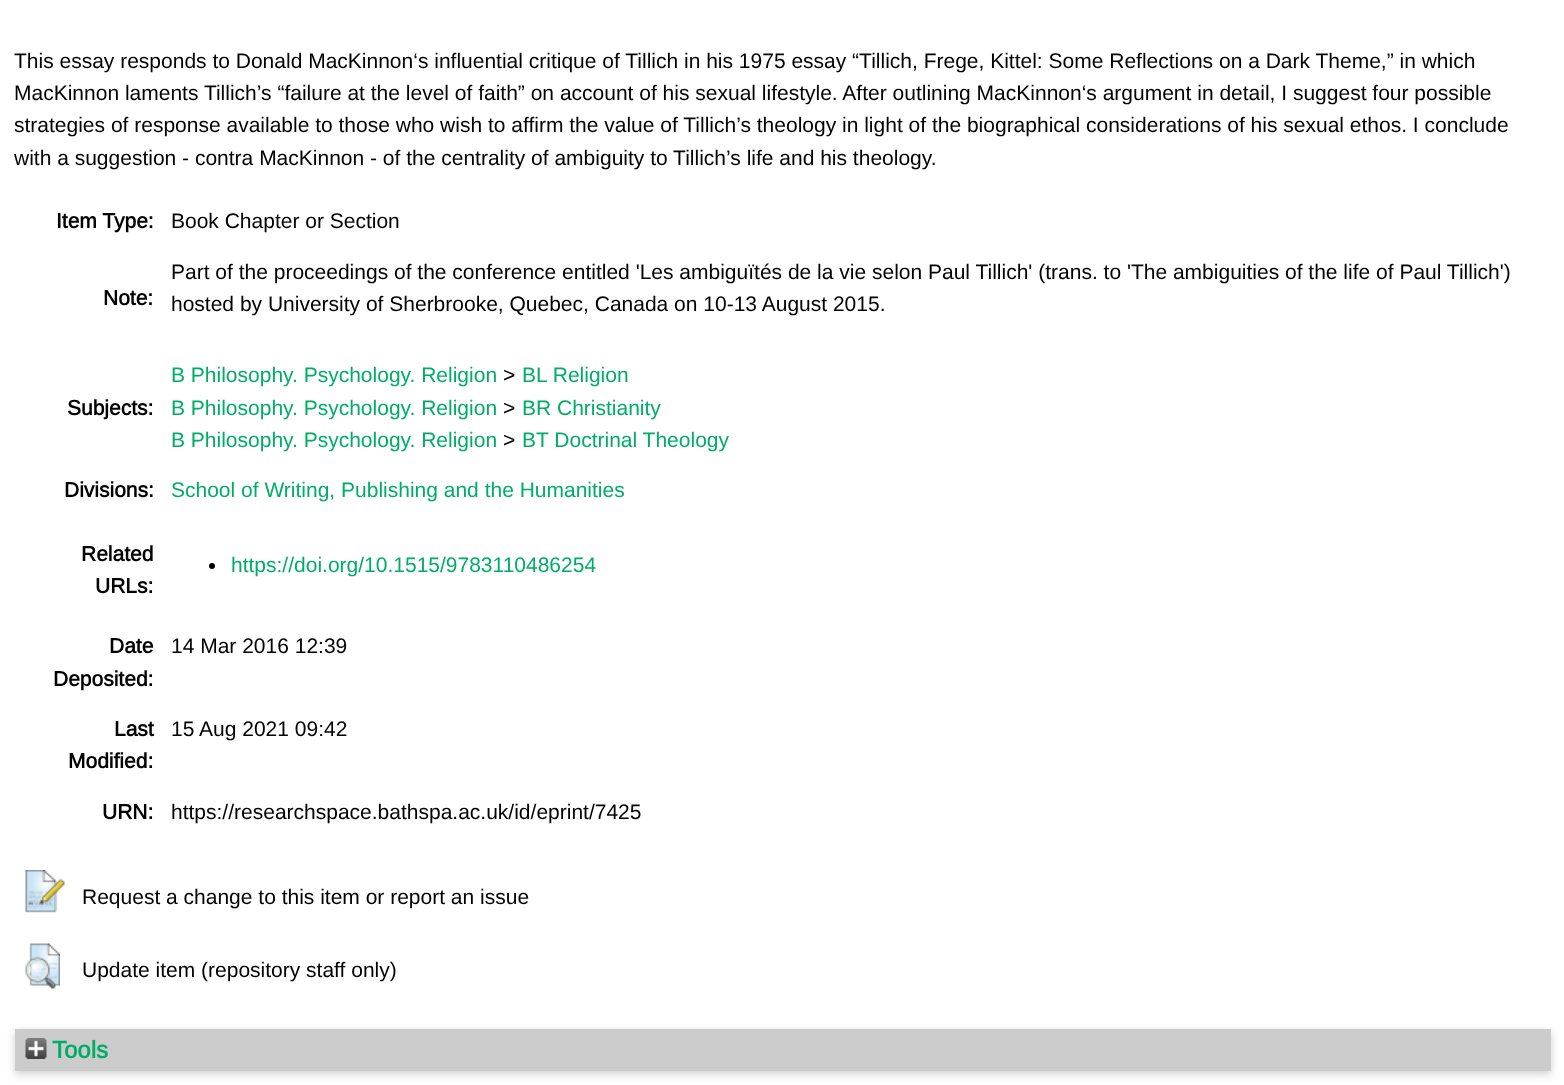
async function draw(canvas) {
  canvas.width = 1564;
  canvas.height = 1085;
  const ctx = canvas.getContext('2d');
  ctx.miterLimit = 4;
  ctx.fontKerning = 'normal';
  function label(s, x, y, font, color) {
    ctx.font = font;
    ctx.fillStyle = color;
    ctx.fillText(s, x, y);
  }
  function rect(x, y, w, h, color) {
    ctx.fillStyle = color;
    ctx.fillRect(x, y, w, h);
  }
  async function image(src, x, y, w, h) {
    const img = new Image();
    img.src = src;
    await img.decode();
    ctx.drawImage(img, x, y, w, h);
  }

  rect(0, 0, 1564, 1085, '#fff');
  label('This essay responds to Donald MacKinnon‘s influential critique of Tillich in his 1975 essay “Tillich, Frege, Kittel: Some Reflections on a Dark Theme,” in which', 14, 68, '21px Liberation Sans', '#000');
  label('MacKinnon laments Tillich’s “failure at the level of faith” on account of his sexual lifestyle. After outlining MacKinnon‘s argument in detail, I suggest four possible', 14, 100, '21px Liberation Sans', '#000');
  label('strategies of response available to those who wish to affirm the value of Tillich’s theology in light of the biographical considerations of his sexual ethos. I conclude', 14, 132, '21px Liberation Sans', '#000');
  label('with a suggestion - contra MacKinnon - of the centrality of ambiguity to Tillich’s life and his theology.', 14, 165, '21px Liberation Sans', '#000');
  label('Item Type:', 56, 228, 'bold 21px Liberation Sans', '#000');
  label('Book Chapter or Section', 171, 228, '21px Liberation Sans', '#000');
  label('Note:', 103, 305, 'bold 21px Liberation Sans', '#000');
  label('Part of the proceedings of the conference entitled \'Les ambiguïtés de la vie selon Paul Tillich\' (trans. to \'The ambiguities of the life of Paul Tillich\')', 171, 279, '21px Liberation Sans', '#000');
  label('hosted by University of Sherbrooke, Quebec, Canada on 10-13 August 2015.', 171, 311, '21px Liberation Sans', '#000');
  label('Subjects:', 67, 415, 'bold 21px Liberation Sans', '#000');
  label('B Philosophy. Psychology. Religion', 171, 382, '21px Liberation Sans', '#00ad68');
  label('>', 503, 382, '21px Liberation Sans', '#000');
  label('BL Religion', 522, 382, '21px Liberation Sans', '#00ad68');
  label('B Philosophy. Psychology. Religion', 171, 415, '21px Liberation Sans', '#00ad68');
  label('>', 503, 415, '21px Liberation Sans', '#000');
  label('BR Christianity', 522, 415, '21px Liberation Sans', '#00ad68');
  label('B Philosophy. Psychology. Religion', 171, 447, '21px Liberation Sans', '#00ad68');
  label('>', 503, 447, '21px Liberation Sans', '#000');
  label('BT Doctrinal Theology', 522, 447, '21px Liberation Sans', '#00ad68');
  label('Divisions:', 64, 497, 'bold 21px Liberation Sans', '#000');
  label('School of Writing, Publishing and the Humanities', 171, 497, '21px Liberation Sans', '#00ad68');
  label('Related', 81, 561, 'bold 21px Liberation Sans', '#000');
  label('URLs:', 95, 593, 'bold 21px Liberation Sans', '#000');
  ctx.beginPath();
  ctx.arc(212, 566, 3, 0, 2 * Math.PI);
  ctx.fill();
  label('https://doi.org/10.1515/9783110486254', 231, 572, '21px Liberation Sans', '#00ad68');
  label('Date', 109, 653, 'bold 21px Liberation Sans', '#000');
  label('Deposited:', 53, 686, 'bold 21px Liberation Sans', '#000');
  label('14 Mar 2016 12:39', 171, 653, '21px Liberation Sans', '#000');
  label('Last', 114, 736, 'bold 21px Liberation Sans', '#000');
  label('Modified:', 68, 768, 'bold 21px Liberation Sans', '#000');
  label('15 Aug 2021 09:42', 171, 736, '21px Liberation Sans', '#000');
  label('URN:', 102, 819, 'bold 21px Liberation Sans', '#000');
  label('https://researchspace.bathspa.ac.uk/id/eprint/7425', 171, 819, '21px Liberation Sans', '#000');
  await image('assets/img1.png', 25, 870, 40, 43);
  label('Request a change to this item or report an issue', 82, 904, '21px Liberation Sans', '#000');
  await image('assets/img2.png', 25, 943, 35, 46);
  label('Update item (repository staff only)', 82, 977, '21px Liberation Sans', '#000');
  ctx.fillStyle = '#6464644d';
  ctx.filter = 'blur(4.5px)';
  ctx.beginPath();
  ctx.rect(15, 1032, 1536, 42);
  ctx.fill();
  ctx.filter = 'none';
  rect(15, 1029, 1536, 42, '#ccc');
  await image('assets/img3.png', 25, 1038, 22, 21);
  label('Tools', 52, 1058, 'bold 24px Liberation Sans', '#00ad68');
}

draw(document.querySelector('canvas'));
